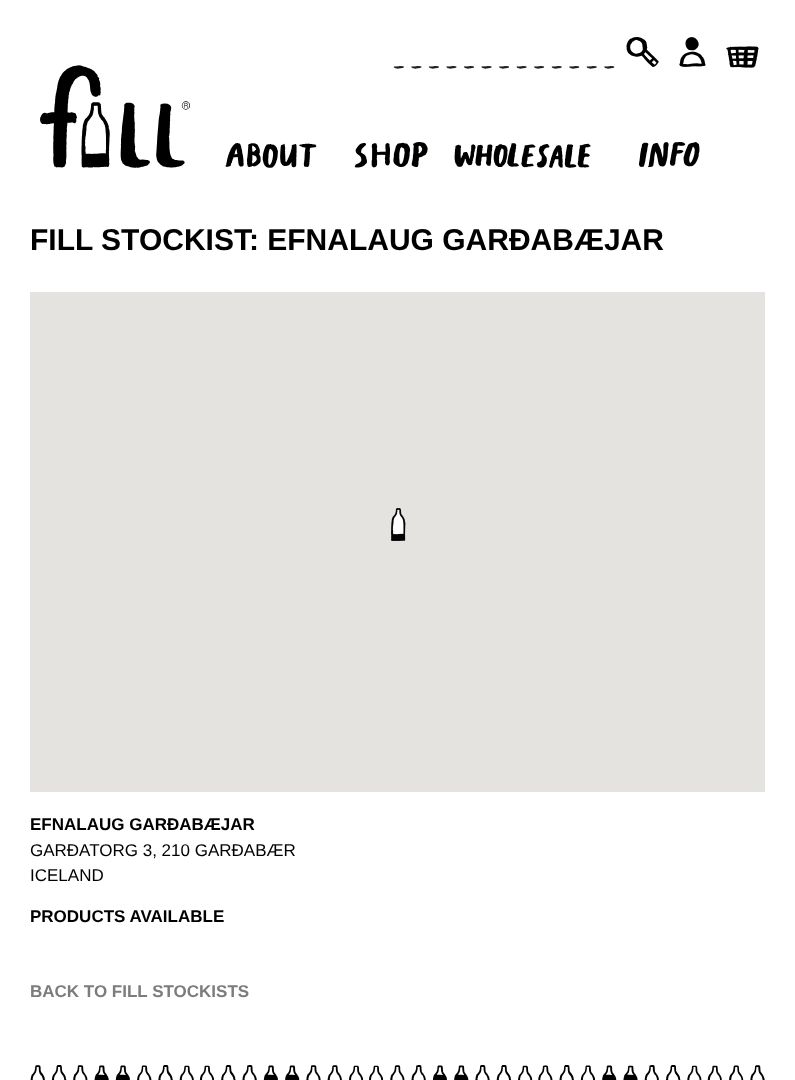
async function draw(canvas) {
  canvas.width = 795;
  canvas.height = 1080;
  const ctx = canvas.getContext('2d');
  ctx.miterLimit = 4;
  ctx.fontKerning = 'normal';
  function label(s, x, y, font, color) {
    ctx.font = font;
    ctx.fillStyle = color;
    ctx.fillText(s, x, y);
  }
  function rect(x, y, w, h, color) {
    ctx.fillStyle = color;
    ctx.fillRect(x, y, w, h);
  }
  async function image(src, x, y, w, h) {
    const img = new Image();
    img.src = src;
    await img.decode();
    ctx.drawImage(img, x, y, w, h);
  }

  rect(0, 0, 795, 1080, '#fff');
  await image('assets/img1.png', 393, 66, 222, 3);
  await image('assets/img2.png', 626, 37, 33, 30);
  await image('assets/img3.png', 679, 37, 27, 30);
  await image('assets/img4.png', 726, 46, 33, 22);
  await image('assets/img5.png', 40, 65, 150, 103);
  await image('assets/img6.png', 225, 143, 92, 25);
  await image('assets/img7.png', 354, 142, 74, 26);
  await image('assets/img8.png', 454, 143, 137, 25);
  await image('assets/img9.png', 639, 142, 61, 26);
  label('FILL STOCKIST: EFNALAUG GARÐABÆJAR', 30, 250, 'bold 30px Liberation Sans', '#000');
  rect(30, 292, 735, 500, '#e5e3df');
  await image('assets/img10.png', 391, 508, 15, 33);
  label('EFNALAUG GARÐABÆJAR', 30, 830, 'bold 17px Liberation Sans', '#000');
  label('GARÐATORG 3, 210 GARÐABÆR', 30, 856, '17px Liberation Sans', '#000');
  label('ICELAND', 30, 881, '17px Liberation Sans', '#000');
  label('PRODUCTS AVAILABLE', 30, 922, 'bold 17px Liberation Sans', '#000');
  label('BACK TO FILL STOCKISTS', 30, 997, 'bold 17px Liberation Sans', '#7c7c7c');
  await image('assets/img11.png', 30, 1065, 735, 15);
}

draw(document.querySelector('canvas'));
